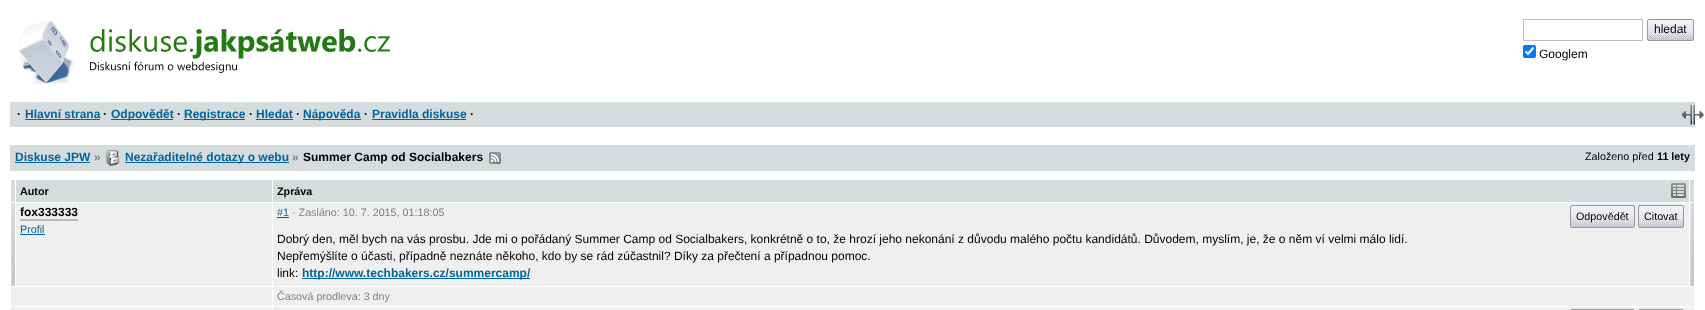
async function draw(canvas) {
  canvas.width = 1705;
  canvas.height = 310;
  const ctx = canvas.getContext('2d');
  ctx.miterLimit = 4;
  ctx.fontKerning = 'normal';
  function label(s, x, y, font, color) {
    ctx.font = font;
    ctx.fillStyle = color;
    ctx.fillText(s, x, y);
  }
  function rect(x, y, w, h, color) {
    ctx.fillStyle = color;
    ctx.fillRect(x, y, w, h);
  }
  function roundedRect(x, y, w, h, r, color) {
    ctx.fillStyle = color;
    ctx.beginPath();
    ctx.roundRect(x, y, w, h, r);
    ctx.fill();
  }
  async function image(src, x, y, w, h) {
    const img = new Image();
    img.src = src;
    await img.decode();
    ctx.drawImage(img, x, y, w, h);
  }
  let path;

  rect(0, 0, 1705, 310, '#fff');
  await image('assets/img1.png', 18, 20, 57, 64);
  await image('assets/img2.png', 90, 29, 300, 44);
  ctx.strokeStyle = '#c0c0c0';
  ctx.strokeRect(1523.5, 19.5, 119, 21);
  roundedRect(1648, 20, 45, 20, 1, '#d6dbde');
  await image('assets/img3.png', 1648, 20, 45, 20);
  ctx.beginPath();
  ctx.roundRect(1647.5, 19.5, 46, 21, 1.5);
  ctx.strokeStyle = '#999';
  ctx.stroke();
  label('hledat', 1654, 33, '12px Liberation Sans', '#000');
  roundedRect(1523, 45, 13, 13, 2, '#0075ff');
  path = new Path2D('M1525.5 51.5L1528 54L1533.5 47.5');
  ctx.strokeStyle = '#fff';
  ctx.lineWidth = 2.1;
  ctx.stroke(path);
  label('Googlem', 1539, 58, '12px Liberation Sans', '#000');
  rect(10, 102, 1685, 25, '#d6dbde');
  label('·', 17, 118, 'bold 12px Liberation Sans', '#000');
  label('Hlavní strana', 25, 118, 'bold 12px Liberation Sans', '#00659c');
  rect(25, 119, 75, 1, '#00659c');
  label('·', 103, 118, 'bold 12px Liberation Sans', '#000');
  rect(111, 119, 62, 1, '#00659c');
  label('Odpovědět', 111, 118, 'bold 12px Liberation Sans', '#00659c');
  label('·', 177, 118, 'bold 12px Liberation Sans', '#000');
  rect(184, 119, 61, 1, '#00659c');
  label('Registrace', 184, 118, 'bold 12px Liberation Sans', '#00659c');
  label('·', 249, 118, 'bold 12px Liberation Sans', '#000');
  label('Hledat', 256, 118, 'bold 12px Liberation Sans', '#00659c');
  rect(256, 119, 37, 1, '#00659c');
  label('·', 296, 118, 'bold 12px Liberation Sans', '#000');
  rect(303, 119, 58, 1, '#00659c');
  label('Nápověda', 303, 118, 'bold 12px Liberation Sans', '#00659c');
  label('·', 364, 118, 'bold 12px Liberation Sans', '#000');
  label('Pravidla diskuse', 372, 118, 'bold 12px Liberation Sans', '#00659c');
  rect(372, 119, 94, 1, '#00659c');
  label('·', 470, 118, 'bold 12px Liberation Sans', '#000');
  await image('assets/img4.png', 1681, 105, 23, 20);
  rect(10, 145, 1685, 26, '#d6dbde');
  label('Diskuse JPW', 15, 161, 'bold 12px Liberation Sans', '#00659c');
  rect(15, 162, 75, 1, '#00659c');
  label('»', 94, 161, 'bold 12px Liberation Sans', '#808080');
  await image('assets/img5.png', 106, 150, 14, 16);
  rect(125, 162, 164, 1, '#00659c');
  label('Nezařaditelné dotazy o webu', 125, 161, 'bold 12px Liberation Sans', '#00659c');
  label('»', 292, 161, 'bold 12px Liberation Sans', '#808080');
  label('Summer Camp od Socialbakers', 303, 161, 'bold 12px Liberation Sans', '#000');
  await image('assets/img6.png', 489, 152, 12, 12);
  label('Založeno před', 1585, 160, '10.75px Liberation Sans', '#000');
  label('11 lety', 1657, 160, 'bold 10.75px Liberation Sans', '#000');
  rect(11, 307, 1684, 3, '#efefef');
  rect(1694, 307, 1, 3, '#fff');
  rect(11, 180, 4, 22, '#d6dbde');
  rect(16, 180, 256, 22, '#d6dbde');
  label('Autor', 20, 195, 'bold 10.75px Liberation Sans', '#000');
  rect(273, 180, 1416, 22, '#d6dbde');
  label('Zpráva', 277, 195, 'bold 10.75px Liberation Sans', '#000');
  rect(1690, 180, 4, 22, '#d6dbde');
  rect(15, 306, 1, 4, '#fff');
  rect(16, 203, 1673, 83, '#efefef');
  rect(11, 287, 1683, 19, '#efefef');
  rect(272, 202, 1, 108, '#fff');
  ctx.beginPath();
  ctx.roundRect(1570.5, 309.5, 64, 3, 1.5);
  ctx.strokeStyle = '#999';
  ctx.lineWidth = 1;
  ctx.stroke();
  ctx.beginPath();
  ctx.roundRect(1638.5, 309.5, 45, 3, 1.5);
  ctx.stroke();
  rect(1689, 306, 1, 4, '#fff');
  await image('assets/img7.png', 11, 203, 4, 83);
  label('fox333333', 20, 216, 'bold 12px Liberation Sans', '#000');
  rect(20, 219, 58, 2, '#b1bbc1');
  label('Profil', 20, 233, '10.75px Liberation Sans', '#00659c');
  rect(20, 234, 25, 1, '#00659c');
  label('#1', 277, 216, '10.75px Liberation Sans', '#00659c');
  rect(277, 217, 12, 1, '#00659c');
  label('· Zasláno: 10. 7. 2015, 01:18:05', 292, 216, '10.75px Liberation Sans', '#808080');
  roundedRect(1571, 206, 63, 21, 1, '#d6dbde');
  await image('assets/img8.png', 1571, 206, 63, 21);
  ctx.beginPath();
  ctx.roundRect(1570.5, 205.5, 64, 22, 1.5);
  ctx.stroke();
  label('Odpovědět', 1576, 220, '10.75px Liberation Sans', '#000');
  roundedRect(1639, 206, 44, 21, 1, '#d6dbde');
  await image('assets/img9.png', 1639, 206, 44, 21);
  ctx.beginPath();
  ctx.roundRect(1638.5, 205.5, 45, 22, 1.5);
  ctx.stroke();
  label('Citovat', 1644, 220, '10.75px Liberation Sans', '#000');
  label('Dobrý den, měl bych na vás prosbu. Jde mi o pořádaný Summer Camp od Socialbakers, konkrétně o to, že hrozí jeho nekonání z důvodu malého počtu kandidátů. Důvodem, myslím, je, že o něm ví velmi málo lidí.', 277, 243, '12px Liberation Sans', '#000');
  label('Nepřemýšlíte o účasti, případně neznáte někoho, kdo by se rád zúčastnil? Díky za přečtení a případnou pomoc.', 277, 260, '12px Liberation Sans', '#000');
  label('link:', 277, 277, '12px Liberation Sans', '#000');
  rect(302, 278, 228, 1, '#00659c');
  label('http://www.techbakers.cz/summercamp/', 302, 277, 'bold 12px Liberation Sans', '#00659c');
  await image('assets/img7.png', 1690, 203, 4, 83);
  label('Časová prodleva: 3 dny', 277, 300, '10.75px Liberation Sans', '#808080');
  await image('assets/img10.png', 1671, 183, 15, 15);
}

draw(document.querySelector('canvas'));
